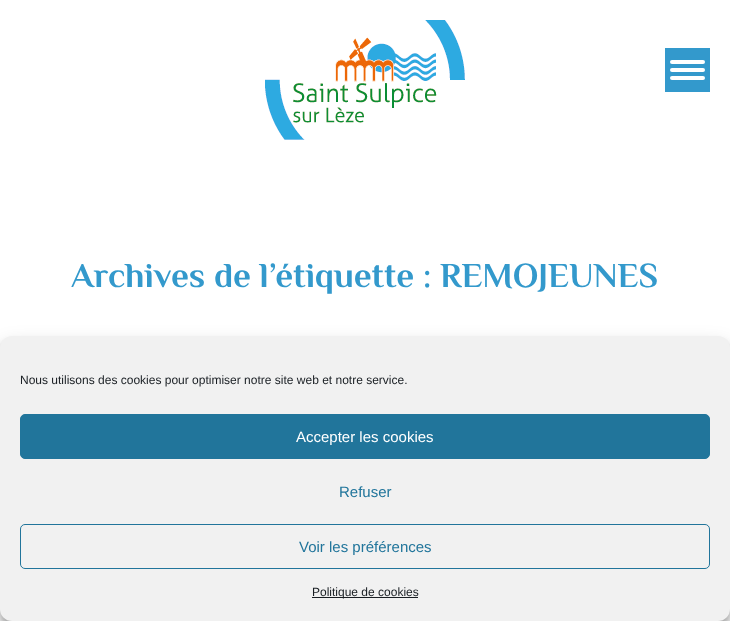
async function draw(canvas) {
  canvas.width = 730;
  canvas.height = 621;
  const ctx = canvas.getContext('2d');
  ctx.miterLimit = 4;
  ctx.fontKerning = 'normal';
  function label(s, x, y, font, color) {
    ctx.font = font;
    ctx.fillStyle = color;
    ctx.fillText(s, x, y);
  }
  function rect(x, y, w, h, color) {
    ctx.fillStyle = color;
    ctx.fillRect(x, y, w, h);
  }
  function roundedRect(x, y, w, h, r, color) {
    ctx.fillStyle = color;
    ctx.beginPath();
    ctx.roundRect(x, y, w, h, r);
    ctx.fill();
  }
  async function image(src, x, y, w, h) {
    const img = new Image();
    img.src = src;
    await img.decode();
    ctx.drawImage(img, x, y, w, h);
  }

  rect(0, 0, 730, 621, '#fff');
  await image('assets/img1.png', 265, 20, 200, 120);
  rect(665, 48, 45, 44, '#39c');
  roundedRect(670, 60, 35, 4, 2, '#fff');
  roundedRect(670, 68, 35, 4, 2, '#fff');
  roundedRect(670, 76, 35, 4, 2, '#fff');
  label('Archives de l’étiquette : REMOJEUNES', 71, 287, 'bold 35px Philosopher', '#39c');
  ctx.fillStyle = '#0000003b';
  ctx.filter = 'blur(3px)';
  ctx.beginPath();
  ctx.roundRect(0, 342, 730, 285, 12);
  ctx.fill();
  ctx.filter = 'none';
  ctx.fillStyle = '#00000030';
  ctx.filter = 'blur(10px)';
  ctx.beginPath();
  ctx.roundRect(0, 346, 730, 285, 12);
  ctx.fill();
  ctx.filter = 'none';
  ctx.fillStyle = '#808080';
  ctx.filter = 'blur(2.5px)';
  ctx.beginPath();
  ctx.roundRect(660, 547, 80, 60, 2);
  ctx.fill();
  ctx.filter = 'none';
  roundedRect(0, 336, 730, 285, 12, '#f1f1f1');
  label('Nous utilisons des cookies pour optimiser notre site web et notre service.', 20, 384, '12px Liberation Sans', '#191e23');
  ctx.fillStyle = '#21759b';
  ctx.beginPath();
  ctx.roundRect(20.5, 414.5, 689, 44, 4.5);
  ctx.fill();
  ctx.strokeStyle = '#21759b';
  ctx.stroke();
  label('Accepter les cookies', 296, 442, '15px Liberation Sans', '#fff');
  label('Refuser', 339, 497, '15px Liberation Sans', '#21759b');
  ctx.beginPath();
  ctx.roundRect(20.5, 524.5, 689, 44, 4.5);
  ctx.stroke();
  label('Voir les préférences', 299, 552, '15px Liberation Sans', '#21759b');
  rect(312, 597, 106, 1, '#191e23');
  label('Politique de cookies', 312, 596, '12px Liberation Sans', '#191e23');
}

draw(document.querySelector('canvas'));
